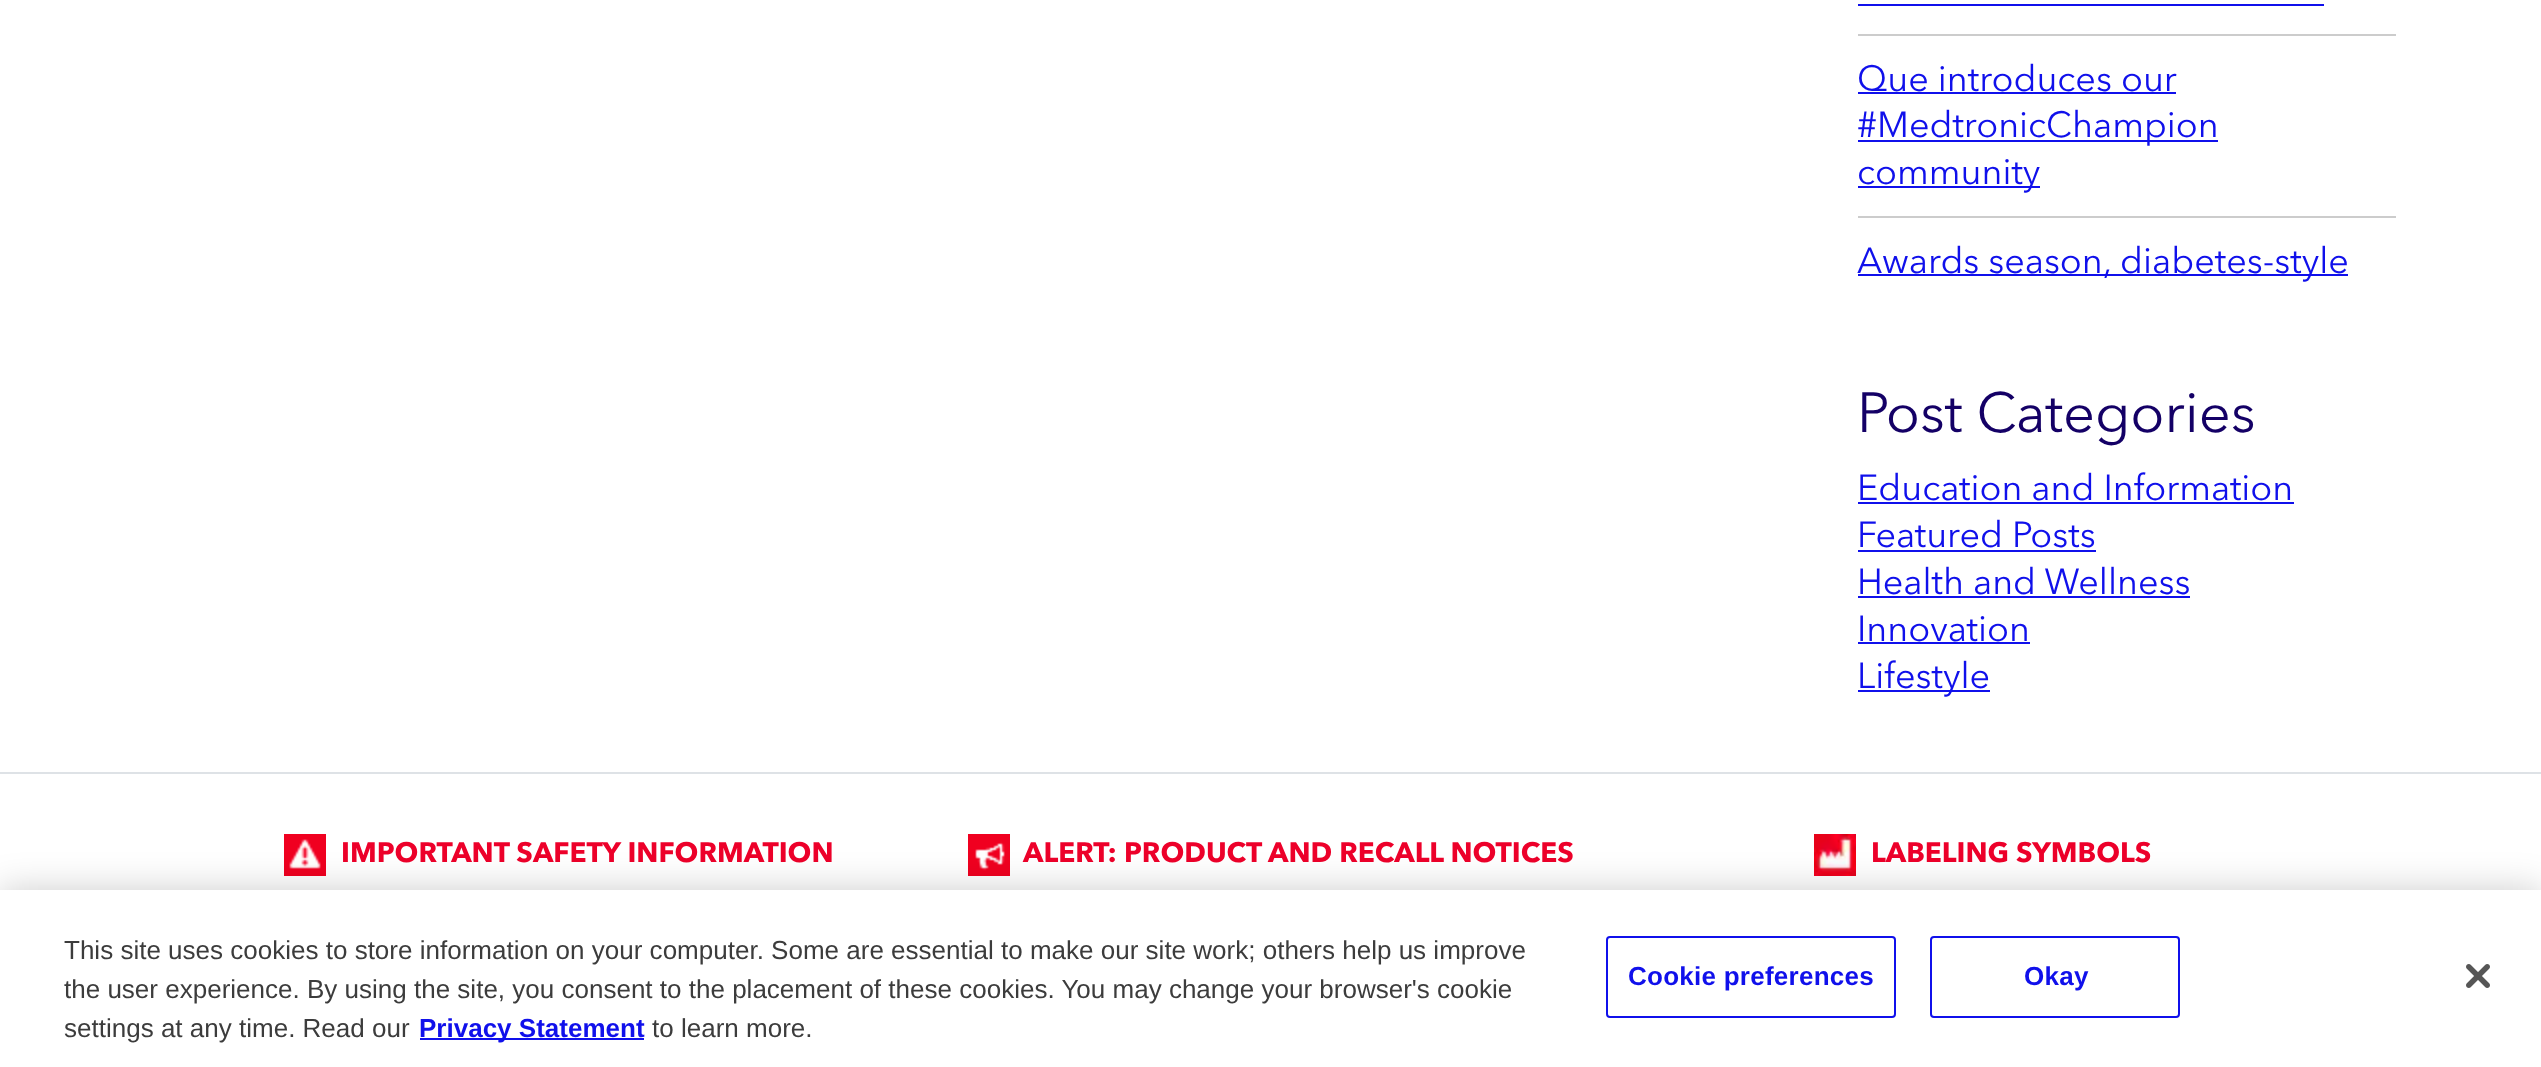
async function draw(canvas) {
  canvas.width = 2541;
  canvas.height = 1067;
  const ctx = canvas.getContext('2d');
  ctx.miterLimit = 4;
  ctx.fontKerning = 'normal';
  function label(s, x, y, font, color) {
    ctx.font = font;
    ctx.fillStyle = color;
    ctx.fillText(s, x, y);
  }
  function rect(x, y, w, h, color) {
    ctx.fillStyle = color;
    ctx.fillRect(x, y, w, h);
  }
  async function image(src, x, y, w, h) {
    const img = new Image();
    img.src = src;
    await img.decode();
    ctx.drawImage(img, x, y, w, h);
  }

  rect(0, 0, 2541, 1067, '#fff');
  rect(1858, 4, 466, 2, '#1010eb');
  rect(1858, 34, 538, 2, '#ccc');
  label('Que introduces our', 1857, 91, '36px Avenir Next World', '#1010eb');
  rect(1858, 92, 318, 2, '#1010eb');
  rect(1858, 140, 360, 2, '#1010eb');
  label('#MedtronicChampion', 1857, 137, '36px Avenir Next World', '#1010eb');
  rect(1858, 186, 182, 2, '#1010eb');
  label('community', 1857, 184, '36px Avenir Next World', '#1010eb');
  rect(1858, 216, 538, 2, '#ccc');
  rect(1858, 274, 490, 2, '#1010eb');
  label('Awards season, diabetes-style', 1857, 273, '36px Avenir Next World', '#1010eb');
  label('Post Categories', 1857, 432, '56px Avenir Next World', '#140066');
  label('Education and Information', 1857, 500, '36px Avenir Next World', '#1010eb');
  rect(1858, 502, 436, 2, '#1010eb');
  label('Featured Posts', 1857, 547, '36px Avenir Next World', '#1010eb');
  rect(1858, 550, 238, 2, '#1010eb');
  label('Health and Wellness', 1857, 594, '36px Avenir Next World', '#1010eb');
  rect(1858, 596, 332, 2, '#1010eb');
  label('Innovation', 1857, 641, '36px Avenir Next World', '#1010eb');
  rect(1858, 642, 172, 2, '#1010eb');
  rect(1858, 690, 132, 2, '#1010eb');
  label('Lifestyle', 1857, 688, '36px Avenir Next World', '#1010eb');
  rect(0, 772, 2541, 2, '#dee2e6');
  await image('assets/img1.png', 284, 834, 42, 42);
  label('IMPORTANT SAFETY INFORMATION', 341, 862, 'bold 28px Avenir Next World', '#ed002a');
  await image('assets/img2.png', 968, 834, 42, 42);
  label('ALERT: PRODUCT AND RECALL NOTICES', 1023, 862, 'bold 28px Avenir Next World', '#ed002a');
  await image('assets/img3.png', 1814, 834, 42, 42);
  label('LABELING SYMBOLS', 1871, 862, 'bold 28px Avenir Next World', '#ed002a');
  ctx.fillStyle = '#00000033';
  ctx.filter = 'blur(18px)';
  ctx.beginPath();
  ctx.rect(0, 890, 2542, 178);
  ctx.fill();
  ctx.filter = 'none';
  rect(0, 890, 2541, 177, '#fff');
  label('This site uses cookies to store information on your computer. Some are essential to make our site work; others help us improve', 64, 959, '26.02px Liberation Sans', '#3c3c3c');
  label('the user experience. By using the site, you consent to the placement of these cookies. You may change your browser\'s cookie', 64, 998, '26.02px Liberation Sans', '#3c3c3c');
  label('settings at any time. Read our', 64, 1037, '26.02px Liberation Sans', '#3c3c3c');
  rect(420, 1038, 224, 2, '#1010eb');
  label('Privacy Statement', 419, 1037, 'bold 26.02px Liberation Sans', '#1010eb');
  label('to learn more.', 652, 1037, '26.02px Liberation Sans', '#3c3c3c');
  ctx.beginPath();
  ctx.roundRect(1607, 937, 288, 80, 3);
  ctx.strokeStyle = '#1010eb';
  ctx.lineWidth = 2;
  ctx.stroke();
  ctx.letterSpacing = '0.25px';
  label('Cookie preferences', 1628, 985, 'bold 26.02px Liberation Sans', '#1010eb');
  ctx.beginPath();
  ctx.roundRect(1931, 937, 248, 80, 3);
  ctx.stroke();
  label('Okay', 2024, 985, 'bold 26.02px Liberation Sans', '#1010eb');
  await image('assets/img4.png', 2466, 964, 24, 24);
}

draw(document.querySelector('canvas'));
